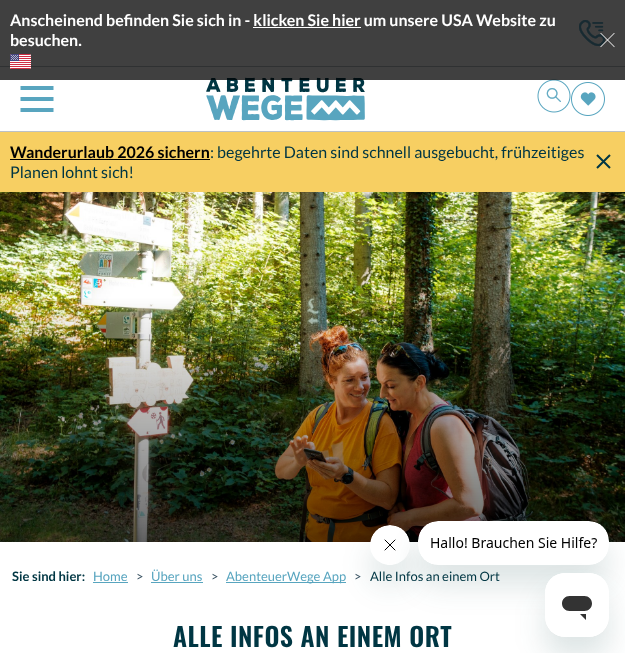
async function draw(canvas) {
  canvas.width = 625;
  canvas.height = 653;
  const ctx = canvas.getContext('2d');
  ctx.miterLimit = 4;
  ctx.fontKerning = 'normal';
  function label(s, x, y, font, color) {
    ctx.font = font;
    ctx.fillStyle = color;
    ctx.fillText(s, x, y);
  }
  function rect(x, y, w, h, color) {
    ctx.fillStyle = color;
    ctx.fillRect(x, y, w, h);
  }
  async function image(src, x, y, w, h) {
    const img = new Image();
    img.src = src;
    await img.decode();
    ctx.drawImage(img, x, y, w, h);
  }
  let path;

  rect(0, 0, 625, 653, '#fff');
  rect(0, 66, 625, 1, '#bcc1c7');
  await image('assets/img3.png', 579, 20, 26, 26);
  await image('assets/img4.png', 206, 77, 159, 44);
  await image('assets/img5.png', 537, 79, 34, 34);
  rect(0, 0, 625, 80, '#000000bf');
  label('Anscheinend befinden Sie sich in - klicken Sie hier um unsere USA Website zu', 10, 26, 'bold 16px Lato', '#fff');
  rect(253, 27, 108, 1, '#fff');
  label('besuchen.', 10, 46, 'bold 16px Lato', '#fff');
  await image('assets/img1.png', 600, 33, 15, 15);
  await image('assets/img2.png', 10, 54, 21, 15);
  rect(0, 131, 625, 1, '#bcc1c7');
  path = new Path2D('M20.5 99H53.5M20.5 88H53.5M20.5 110H53.5');
  ctx.strokeStyle = '#58a5bf';
  ctx.lineWidth = 4;
  ctx.lineJoin = 'round';
  ctx.stroke(path);
  await image('assets/img6.png', 571, 82, 34, 34);
  rect(0, 132, 625, 60, '#f7cf62');
  label('Wanderurlaub 2026 sichern', 10, 158, 'bold 16px Lato', '#000');
  rect(10, 159, 200, 1, '#000');
  label(': begehrte Daten sind schnell ausgebucht, frühzeitiges', 210, 158, '16px Lato', '#003643');
  label('Planen lohnt sich!', 10, 178, '16px Lato', '#003643');
  path = new Path2D('M610 155L597 168M597 155L610 168');
  ctx.strokeStyle = '#003643';
  ctx.lineWidth = 2;
  ctx.stroke(path);
  await image('assets/img7.png', 0, 192, 625, 350);
  rect(226, 582, 120, 1, '#58a5bf');
  ctx.save();
  path = new Path2D('M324 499H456V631H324ZM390 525C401 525 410 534 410 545C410 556 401 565 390 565C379 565 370 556 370 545C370 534 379 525 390 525Z');
  ctx.clip(path, 'evenodd');
  ctx.fillStyle = '#17494d26';
  ctx.filter = 'blur(15px)';
  ctx.beginPath();
  ctx.roundRect(370, 545, 40, 40, 20);
  ctx.fill();
  ctx.filter = 'none';
  ctx.restore();
  await image('assets/img9.png', 370, 525, 40, 26);
  ctx.fillStyle = '#17494d26';
  ctx.filter = 'blur(15px)';
  ctx.beginPath();
  ctx.roundRect(418, 541, 191, 44, 20);
  ctx.fill();
  ctx.filter = 'none';
  await image('assets/img8.png', 418, 521, 191, 44);
  ctx.filter = 'blur(15px)';
  ctx.beginPath();
  ctx.roundRect(545, 593, 64, 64, 20);
  ctx.fill();
  ctx.filter = 'none';
  await image('assets/img10.png', 545, 573, 64, 64);
  label('Sie sind hier:', 12, 581, 'bold 13px Lato', '#003643');
  label('Home', 93, 581, '13px Lato', '#58a5bf');
  rect(93, 582, 35, 1, '#58a5bf');
  label('>', 136, 581, '13px Lato', '#395262');
  label('Über uns', 151, 581, '13px Lato', '#58a5bf');
  rect(151, 582, 52, 1, '#58a5bf');
  label('>', 211, 581, '13px Lato', '#395262');
  label('AbenteuerWege App', 226, 581, '13px Lato', '#58a5bf');
  label('>', 354, 581, '13px Lato', '#395262');
  label('Alle Infos an einem Ort', 370, 581, '13px Lato', '#003643');
  ctx.letterSpacing = '0.5px';
  label('ALLE INFOS AN EINEM ORT', 173, 647, '600 26px Oswald', '#003643');
}

draw(document.querySelector('canvas'));
